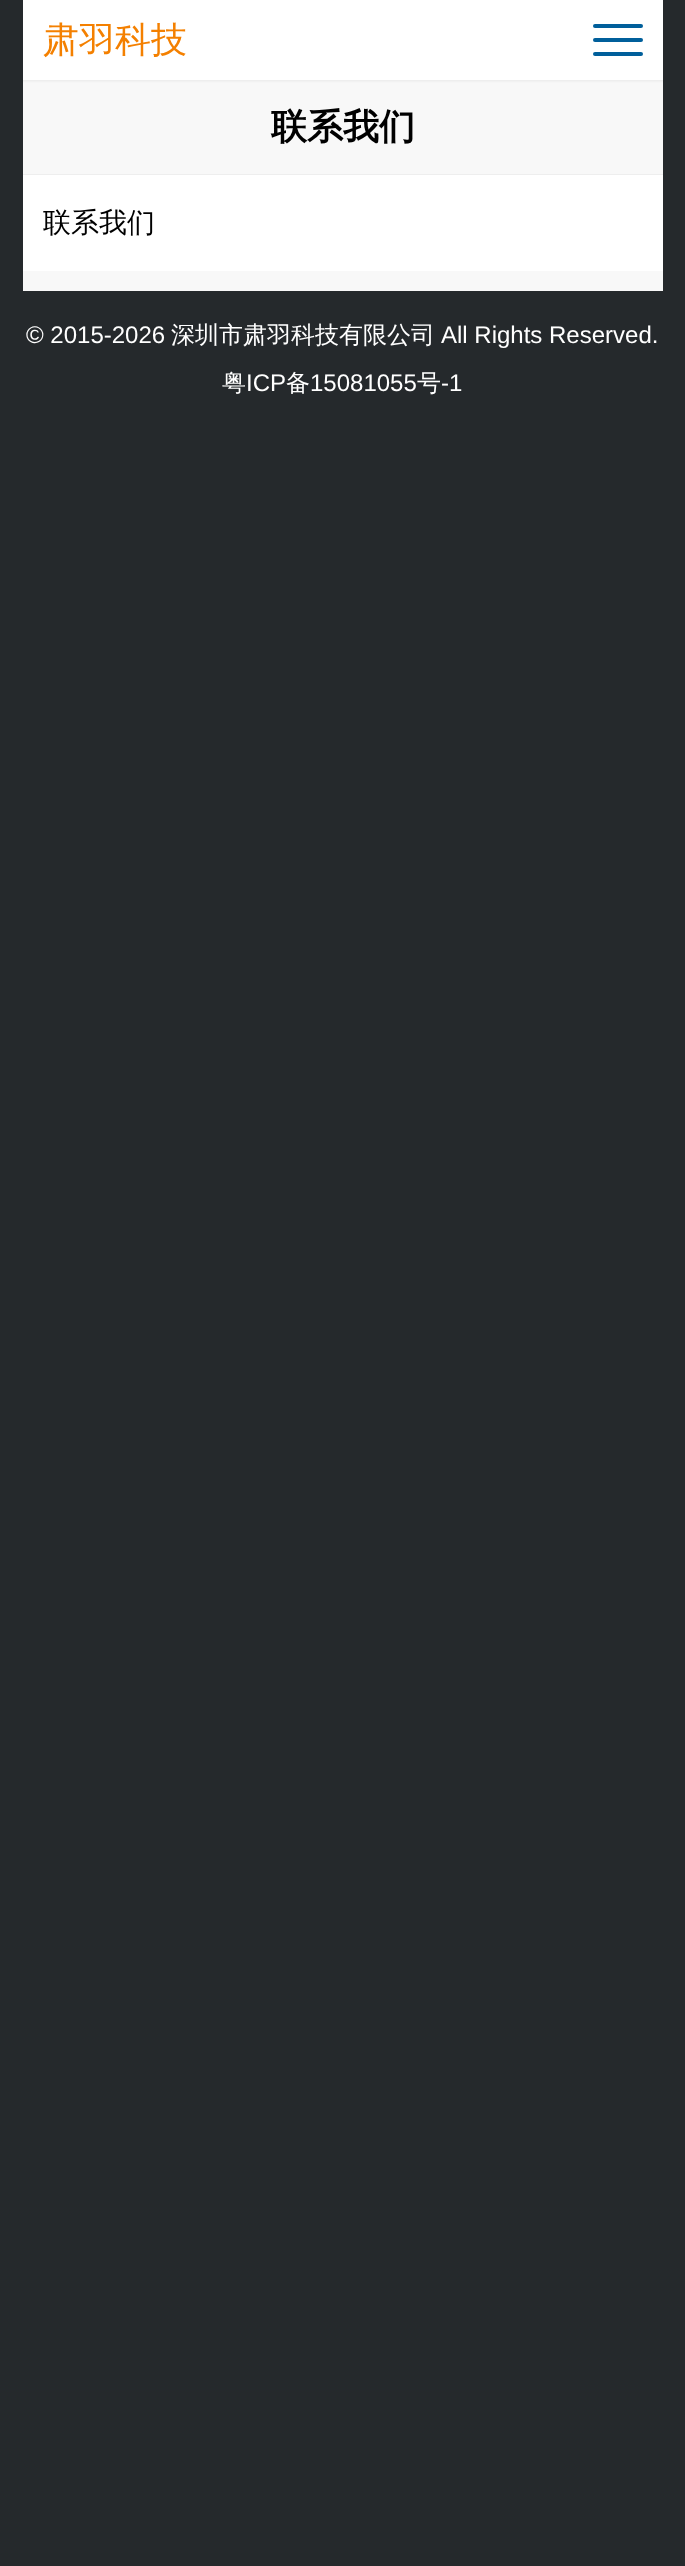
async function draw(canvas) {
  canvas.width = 685;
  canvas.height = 2566;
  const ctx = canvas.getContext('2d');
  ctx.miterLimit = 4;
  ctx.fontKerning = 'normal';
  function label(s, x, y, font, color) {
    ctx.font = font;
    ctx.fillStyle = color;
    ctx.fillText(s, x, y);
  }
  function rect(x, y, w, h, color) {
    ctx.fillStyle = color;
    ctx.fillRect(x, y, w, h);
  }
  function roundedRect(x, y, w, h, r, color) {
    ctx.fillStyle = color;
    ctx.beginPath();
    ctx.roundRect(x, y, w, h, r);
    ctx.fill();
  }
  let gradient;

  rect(0, 0, 685, 2566, '#25292c');
  rect(23, 0, 640, 80, '#fff');
  rect(23, 80, 640, 1, '#eee');
  label('肃羽科技', 43, 52, '500 36px WenQuanYi Zen Hei', '#f48000');
  roundedRect(593, 24, 50, 4, 2, '#005f9b');
  roundedRect(593, 38, 50, 4, 2, '#005f9b');
  roundedRect(593, 52, 50, 4, 2, '#005f9b');
  rect(23, 83, 640, 208, '#f8f8f8');
  gradient = ctx.createLinearGradient(343, 80, 343, 83);
  gradient.addColorStop(0, '#ececec');
  gradient.addColorStop(1, '#f8f8f8');
  ctx.fillStyle = gradient;
  ctx.fillRect(23, 81, 640, 2);
  rect(23, 174, 640, 1, '#eee');
  label('联系我们', 271, 139, 'bold 36px WenQuanYi Zen Hei', '#000');
  rect(23, 175, 640, 96, '#fff');
  label('联系我们', 43, 232, '500 28px WenQuanYi Zen Hei', '#000');
  label('© 2015-2026', 26, 343, '24px Liberation Sans', '#fff');
  label('深圳市肃羽科技有限公司', 171, 343, '500 24px WenQuanYi Zen Hei', '#fff');
  label('All Rights Reserved.', 441, 343, '24px Liberation Sans', '#fff');
  label('粤', 222, 391, '500 24px WenQuanYi Zen Hei', '#fff');
  label('ICP', 246, 391, '24px Liberation Sans', '#fff');
  label('备', 286, 391, '500 24px WenQuanYi Zen Hei', '#fff');
  label('15081055', 310, 391, '24px Liberation Sans', '#fff');
  label('号', 417, 391, '500 24px WenQuanYi Zen Hei', '#fff');
  label('-1', 441, 391, '24px Liberation Sans', '#fff');
}

draw(document.querySelector('canvas'));
